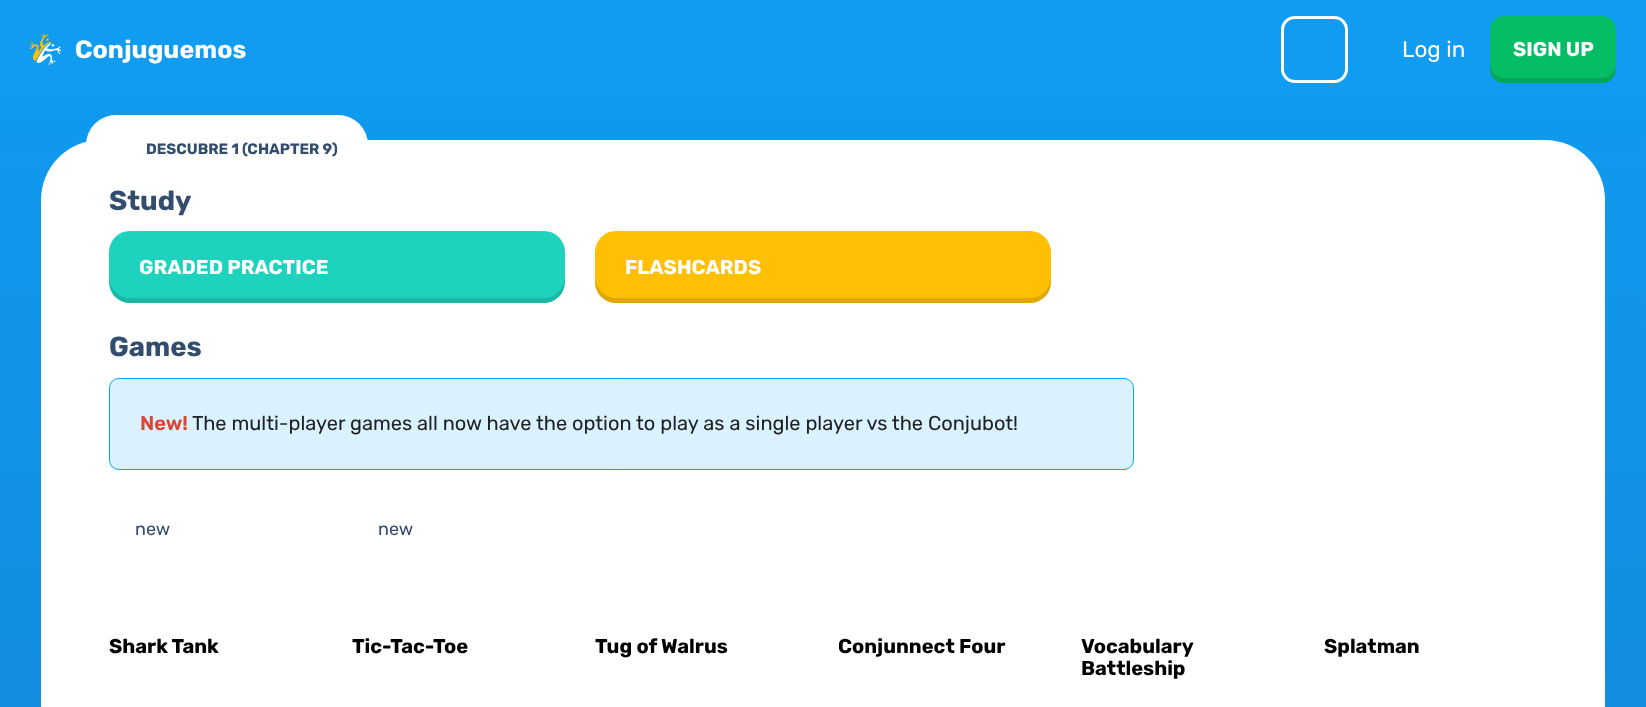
async function draw(canvas) {
  canvas.width = 1646;
  canvas.height = 707;
  const ctx = canvas.getContext('2d');
  ctx.miterLimit = 4;
  ctx.fontKerning = 'normal';
  function label(s, x, y, font, color) {
    ctx.font = font;
    ctx.fillStyle = color;
    ctx.fillText(s, x, y);
  }
  function rect(x, y, w, h, color) {
    ctx.fillStyle = color;
    ctx.fillRect(x, y, w, h);
  }
  function roundedRect(x, y, w, h, r, color) {
    ctx.fillStyle = color;
    ctx.beginPath();
    ctx.roundRect(x, y, w, h, r);
    ctx.fill();
  }
  async function image(src, x, y, w, h) {
    const img = new Image();
    img.src = src;
    await img.decode();
    ctx.drawImage(img, x, y, w, h);
  }
  let gradient, path;

  rect(0, 0, 1646, 707, '#fff');
  gradient = ctx.createLinearGradient(823, 0, 823, 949);
  gradient.addColorStop(0, '#0f9cf1');
  gradient.addColorStop(1, '#1389d9');
  ctx.fillStyle = gradient;
  ctx.fillRect(0, 100, 1646, 607);
  rect(0, 0, 1646, 100, '#0f9cf1');
  await image('assets/img1.png', 30, 34, 31, 31);
  label('Conjuguemos', 75, 58, 'bold 25px Rubik', '#fff');
  ctx.beginPath();
  ctx.roundRect(1282.5, 17.5, 64, 64, 12.5);
  ctx.strokeStyle = '#fff';
  ctx.lineWidth = 3;
  ctx.stroke();
  label('Log in', 1402, 57, '22.5px Rubik', '#fff');
  roundedRect(1490, 16, 126, 67, 14, '#05bd65');
  ctx.fillStyle = '#0000001f';
  path = new Path2D('M1490 64V69C1490 77 1496 83 1504 83H1602C1610 83 1616 77 1616 69V64C1616 71 1610 78 1602 78H1504C1496 78 1490 71 1490 64Z');
  ctx.fill(path);
  label('SIGN UP', 1513, 56, 'bold 20px Rubik', '#fff');
  roundedRect(41, 140, 1564, 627, 60, '#fff');
  roundedRect(86, 115, 282, 70, 30, '#fff');
  label('DESCUBRE 1 (CHAPTER 9)', 146, 154, 'bold 15px Rubik', '#334d6e');
  label('Study', 109, 210, 'bold 27.5px Rubik', '#334d6e');
  roundedRect(109, 231, 456, 72, 21, '#1dd3bd');
  ctx.fillStyle = '#0000001f';
  path = new Path2D('M109 276V282C109 294 118 303 130 303H544C556 303 565 294 565 282V276C565 288 555 298 544 298H130C118 298 109 288 109 276Z');
  ctx.fill(path);
  label('GRADED PRACTICE', 139, 274, 'bold 20px Rubik', '#fff');
  roundedRect(595, 231, 456, 72, 21, '#ffbf03');
  ctx.fillStyle = '#0000001f';
  path = new Path2D('M595 276V282C595 294 604 303 616 303H1030C1042 303 1051 294 1051 282V276C1051 288 1042 298 1030 298H616C605 298 595 288 595 276Z');
  ctx.fill(path);
  label('FLASHCARDS', 625, 274, 'bold 20px Rubik', '#fff');
  label('Games', 109, 356, 'bold 27.5px Rubik', '#334d6e');
  ctx.fillStyle = '#d9f2fd';
  ctx.beginPath();
  ctx.roundRect(109.5, 378.5, 1024, 91, 9.5);
  ctx.fill();
  ctx.strokeStyle = '#03a9f4';
  ctx.lineWidth = 1;
  ctx.stroke();
  label('New!', 140, 430, '600 20px Rubik', '#db4437');
  label('The multi-player games all now have the option to play as a single player vs the Conjubot!', 192, 430, '20px Rubik', '#202124');
  label('new', 135, 535, '18px Rubik', '#334d6e');
  label('Shark Tank', 109, 653, 'bold 20px Rubik', '#000');
  label('new', 378, 535, '18px Rubik', '#334d6e');
  label('Tic-Tac-Toe', 352, 653, 'bold 20px Rubik', '#000');
  label('Tug of Walrus', 595, 653, 'bold 20px Rubik', '#000');
  label('Conjunnect Four', 838, 653, 'bold 20px Rubik', '#000');
  label('Vocabulary', 1081, 653, 'bold 20px Rubik', '#000');
  label('Battleship', 1081, 675, 'bold 20px Rubik', '#000');
  label('Splatman', 1324, 653, 'bold 20px Rubik', '#000');
}

draw(document.querySelector('canvas'));
